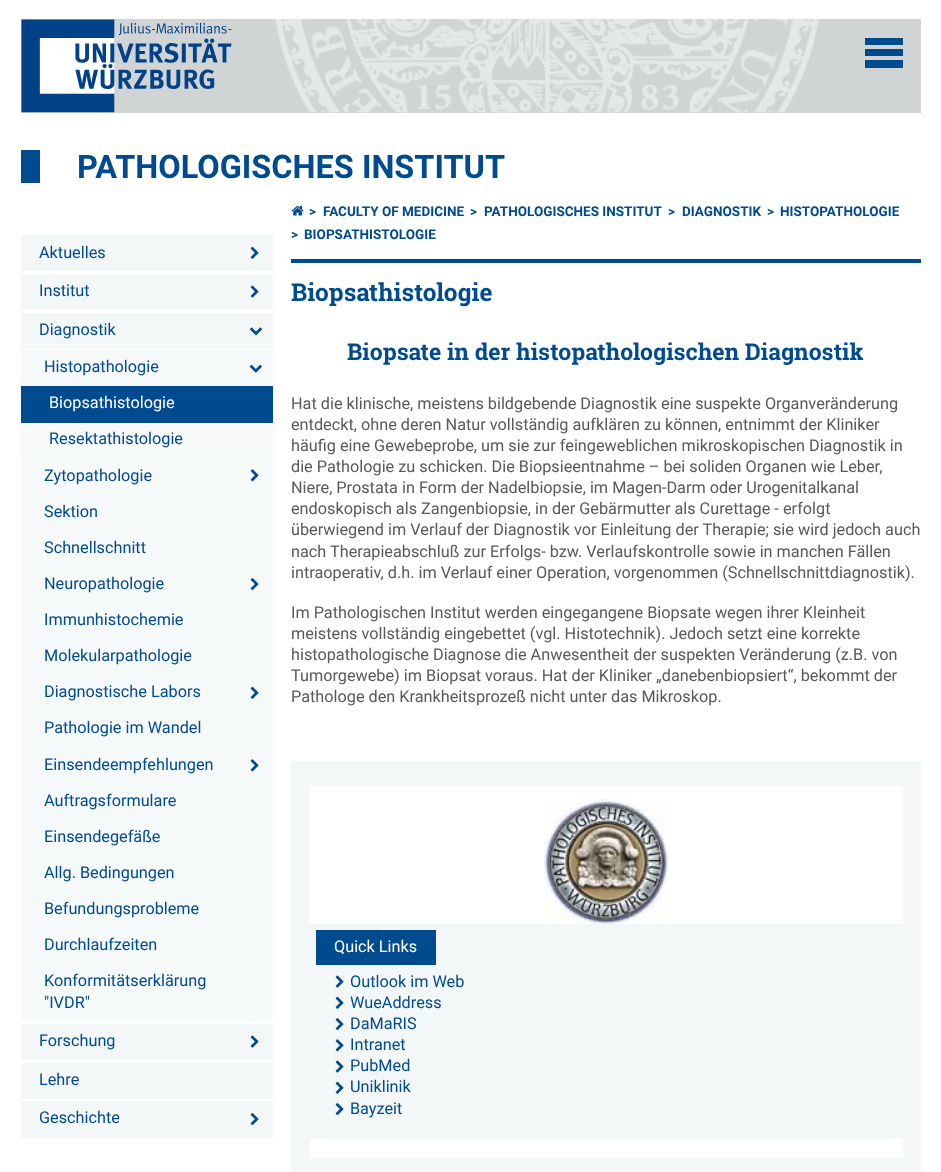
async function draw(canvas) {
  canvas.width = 941;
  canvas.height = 1172;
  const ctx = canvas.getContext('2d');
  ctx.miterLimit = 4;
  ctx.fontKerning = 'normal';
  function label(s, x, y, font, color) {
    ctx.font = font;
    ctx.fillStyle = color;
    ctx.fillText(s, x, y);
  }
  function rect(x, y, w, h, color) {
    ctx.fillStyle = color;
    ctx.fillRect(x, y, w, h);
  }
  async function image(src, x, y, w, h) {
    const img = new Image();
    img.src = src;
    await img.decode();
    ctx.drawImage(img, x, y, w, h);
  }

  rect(0, 0, 941, 1172, '#fff');
  rect(21, 19, 900, 94, '#d1d4d4');
  await image('assets/img1.png', 275, 18, 544, 95);
  await image('assets/img2.png', 21, 19, 211, 94);
  rect(865, 38, 38, 7, '#004a8f');
  rect(865, 49, 38, 7, '#004a8f');
  rect(865, 60, 38, 8, '#004a8f');
  rect(21, 150, 19, 33, '#004a8f');
  label('PATHOLOGISCHES INSTITUT', 77, 178, 'bold 32.5px Roboto', '#004a8f');
  rect(21, 235, 252, 36, '#f4f7f7');
  label('Aktuelles', 39, 258, '16.25px Roboto', '#004a8f');
  await image('assets/img3.png', 250, 246, 9, 13);
  rect(21, 274, 252, 36, '#f4f7f7');
  label('Institut', 39, 296, '16.25px Roboto', '#004a8f');
  await image('assets/img4.png', 250, 285, 9, 13);
  rect(21, 313, 252, 36, '#f4f7f7');
  label('Diagnostik', 39, 335, '16.25px Roboto', '#004a8f');
  await image('assets/img5.png', 249, 327, 13, 9);
  rect(21, 350, 252, 36, '#f6f9f9');
  label('Histopathologie', 44, 372, '16.25px Roboto', '#004a8f');
  await image('assets/img6.png', 249, 364, 13, 9);
  rect(21, 386, 252, 37, '#004a8f');
  label('Biopsathistologie', 49, 408, '16.25px Roboto', '#fff');
  rect(21, 423, 252, 35, '#f8fafa');
  label('Resektathistologie', 49, 444, '16.25px Roboto', '#004a8f');
  rect(21, 458, 252, 108, '#f6f9f9');
  label('Zytopathologie', 44, 481, '16.25px Roboto', '#004a8f');
  await image('assets/img7.png', 250, 469, 9, 13);
  label('Sektion', 44, 517, '16.25px Roboto', '#004a8f');
  label('Schnellschnitt', 44, 553, '16.25px Roboto', '#004a8f');
  rect(21, 566, 252, 109, '#f6f9f9');
  label('Neuropathologie', 44, 589, '16.25px Roboto', '#004a8f');
  await image('assets/img8.png', 250, 578, 9, 13);
  label('Immunhistochemie', 44, 625, '16.25px Roboto', '#004a8f');
  label('Molekularpathologie', 44, 661, '16.25px Roboto', '#004a8f');
  rect(21, 675, 252, 73, '#f6f9f9');
  label('Diagnostische Labors', 44, 697, '16.25px Roboto', '#004a8f');
  await image('assets/img9.png', 250, 686, 9, 13);
  label('Pathologie im Wandel', 44, 733, '16.25px Roboto', '#004a8f');
  rect(21, 748, 252, 273, '#f6f9f9');
  label('Einsendeempfehlungen', 44, 770, '16.25px Roboto', '#004a8f');
  await image('assets/img7.png', 250, 759, 9, 13);
  label('Auftragsformulare', 44, 806, '16.25px Roboto', '#004a8f');
  label('Einsendegefäße', 44, 842, '16.25px Roboto', '#004a8f');
  label('Allg. Bedingungen', 44, 878, '16.25px Roboto', '#004a8f');
  label('Befundungsprobleme', 44, 914, '16.25px Roboto', '#004a8f');
  label('Durchlaufzeiten', 44, 950, '16.25px Roboto', '#004a8f');
  label('Konformitätserklärung', 44, 986, '16.25px Roboto', '#004a8f');
  label('"IVDR"', 44, 1008, '16.25px Roboto', '#004a8f');
  rect(21, 1024, 252, 36, '#f4f7f7');
  label('Forschung', 39, 1046, '16.25px Roboto', '#004a8f');
  await image('assets/img4.png', 250, 1035, 9, 13);
  rect(21, 1063, 252, 36, '#f4f7f7');
  label('Lehre', 39, 1085, '16.25px Roboto', '#004a8f');
  rect(21, 1101, 252, 37, '#f4f7f7');
  label('Geschichte', 39, 1123, '16.25px Roboto', '#004a8f');
  await image('assets/img10.png', 250, 1113, 9, 13);
  rect(291, 259, 630, 4, '#004a8f');
  await image('assets/img11.png', 291, 205, 13, 11);
  label('>', 309, 216, 'bold 13.5px Roboto', '#004a8f');
  label('FACULTY OF MEDICINE', 323, 216, 'bold 13.5px Roboto', '#004a8f');
  label('>', 470, 216, 'bold 13.5px Roboto', '#004a8f');
  label('PATHOLOGISCHES INSTITUT', 484, 216, 'bold 13.5px Roboto', '#004a8f');
  label('>', 668, 216, 'bold 13.5px Roboto', '#004a8f');
  label('DIAGNOSTIK', 682, 216, 'bold 13.5px Roboto', '#004a8f');
  label('>', 767, 216, 'bold 13.5px Roboto', '#004a8f');
  label('HISTOPATHOLOGIE', 780, 216, 'bold 13.5px Roboto', '#004a8f');
  label('>', 291, 239, 'bold 13.5px Roboto', '#004a8f');
  label('BIOPSATHISTOLOGIE', 304, 239, 'bold 13.5px Roboto', '#004a8f');
  label('Biopsathistologie', 291, 301, 'bold 24.5px Roboto Slab', '#004a8f');
  label('Biopsate in der histopathologischen Diagnostik', 347, 360, 'bold 23.1px Roboto Slab', '#004a8f');
  label('Hat die klinische, meistens bildgebende Diagnostik eine suspekte Organveränderung', 291, 409, '16.25px Roboto', '#595959');
  label('entdeckt, ohne deren Natur vollständig aufklären zu können, entnimmt der Kliniker', 291, 430, '16.25px Roboto', '#595959');
  label('häufig eine Gewebeprobe, um sie zur feingeweblichen mikroskopischen Diagnostik in', 291, 451, '16.25px Roboto', '#595959');
  label('die Pathologie zu schicken. Die Biopsieentnahme – bei soliden Organen wie Leber,', 291, 472, '16.25px Roboto', '#595959');
  label('Niere, Prostata in Form der Nadelbiopsie, im Magen-Darm oder Urogenitalkanal', 291, 493, '16.25px Roboto', '#595959');
  label('endoskopisch als Zangenbiopsie, in der Gebärmutter als Curettage - erfolgt', 291, 514, '16.25px Roboto', '#595959');
  label('überwiegend im Verlauf der Diagnostik vor Einleitung der Therapie; sie wird jedoch auch', 291, 535, '16.25px Roboto', '#595959');
  label('nach Therapieabschluß zur Erfolgs- bzw. Verlaufskontrolle sowie in manchen Fällen', 291, 557, '16.25px Roboto', '#595959');
  label('intraoperativ, d.h. im Verlauf einer Operation, vorgenommen (Schnellschnittdiagnostik).', 291, 578, '16.25px Roboto', '#595959');
  label('Im Pathologischen Institut werden eingegangene Biopsate wegen ihrer Kleinheit', 291, 618, '16.25px Roboto', '#595959');
  label('meistens vollständig eingebettet (vgl. Histotechnik). Jedoch setzt eine korrekte', 291, 639, '16.25px Roboto', '#595959');
  label('histopathologische Diagnose die Anwesentheit der suspekten Veränderung (z.B. von', 291, 660, '16.25px Roboto', '#595959');
  label('Tumorgewebe) im Biopsat voraus. Hat der Kliniker „danebenbiopsiert“, bekommt der', 291, 681, '16.25px Roboto', '#595959');
  label('Pathologe den Krankheitsprozeß nicht unter das Mikroskop.', 291, 702, '16.25px Roboto', '#595959');
  rect(310, 761, 593, 25, '#f4f7f7');
  rect(903, 761, 18, 397, '#f4f7f7');
  rect(310, 1158, 611, 14, '#f4f7f7');
  rect(291, 761, 19, 411, '#f4f7f7');
  await image('assets/img12.png', 544, 799, 125, 125);
  rect(310, 924, 593, 215, '#f4f7f7');
  rect(316, 930, 120, 35, '#004a8f');
  label('Quick Links', 334, 952, '16.25px Roboto', '#fff');
  await image('assets/img4.png', 335, 975, 9, 13);
  label('Outlook im Web', 350, 987, '16.25px Roboto', '#004a8f');
  await image('assets/img3.png', 335, 996, 9, 13);
  label('WueAddress', 350, 1008, '16.25px Roboto', '#004a8f');
  await image('assets/img10.png', 335, 1018, 9, 13);
  label('DaMaRIS', 350, 1029, '16.25px Roboto', '#004a8f');
  await image('assets/img13.png', 335, 1039, 9, 13);
  label('Intranet', 350, 1050, '16.25px Roboto', '#004a8f');
  await image('assets/img4.png', 335, 1060, 9, 13);
  label('PubMed', 350, 1071, '16.25px Roboto', '#004a8f');
  await image('assets/img3.png', 335, 1081, 9, 13);
  label('Uniklinik', 350, 1092, '16.25px Roboto', '#004a8f');
  await image('assets/img10.png', 335, 1103, 9, 13);
  label('Bayzeit', 350, 1114, '16.25px Roboto', '#004a8f');
}

draw(document.querySelector('canvas'));
